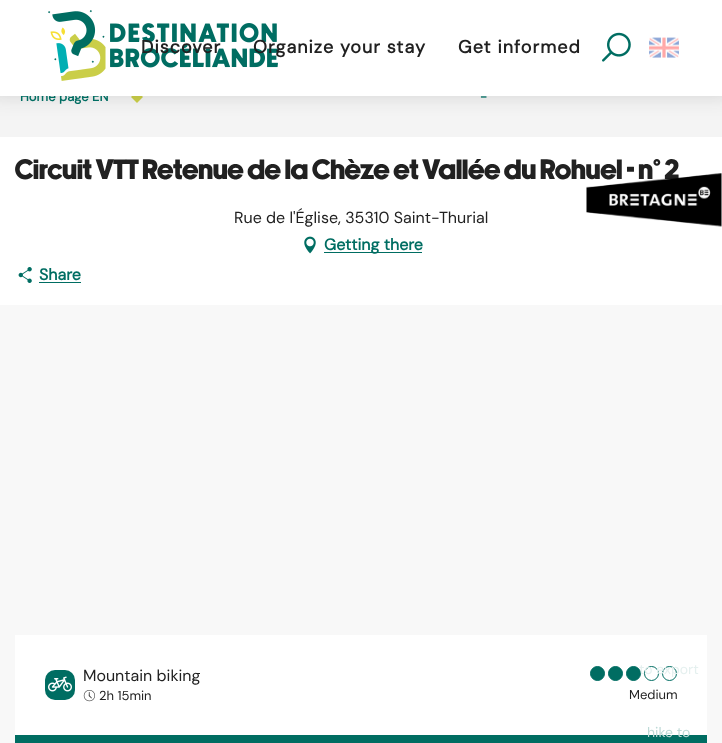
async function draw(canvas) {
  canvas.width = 722;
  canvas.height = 743;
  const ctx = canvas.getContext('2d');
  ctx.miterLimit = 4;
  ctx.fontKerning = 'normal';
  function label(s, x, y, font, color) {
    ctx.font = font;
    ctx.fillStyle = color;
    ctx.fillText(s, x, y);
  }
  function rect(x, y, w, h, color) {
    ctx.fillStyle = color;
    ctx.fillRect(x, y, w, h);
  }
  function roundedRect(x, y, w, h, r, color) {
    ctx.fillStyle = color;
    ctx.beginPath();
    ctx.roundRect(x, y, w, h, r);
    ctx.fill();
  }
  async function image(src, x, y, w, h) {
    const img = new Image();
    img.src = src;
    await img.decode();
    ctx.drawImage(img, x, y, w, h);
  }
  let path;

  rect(0, 0, 722, 743, '#fff');
  rect(0, 96, 722, 41, '#f4f4f4');
  ctx.fillStyle = '#cbcf48';
  path = new Path2D('M143 97L137 91L131 97L137 103Z');
  ctx.fill(path);
  ctx.fillStyle = '#21212126';
  ctx.filter = 'blur(10px)';
  ctx.beginPath();
  ctx.rect(-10, -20, 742, 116);
  ctx.fill();
  ctx.filter = 'none';
  label('Home page EN', 20, 101, 'bold 13px DM Sans', '#006d62');
  rect(0, 0, 722, 96, '#fff');
  await image('assets/img1.png', 48, 10, 230, 71);
  ctx.letterSpacing = '1px';
  label('Discover', 141, 53, 'bold 18px DM Sans', '#212121');
  label('Organize your stay', 253, 53, 'bold 18px DM Sans', '#212121');
  label('Get informed', 458, 53, 'bold 18px DM Sans', '#212121');
  await image('assets/img2.png', 602, 32, 29, 30);
  await image('assets/img3.png', 649, 37, 30, 21);
  ctx.letterSpacing = '0px';
  label('Circuit VTT Retenue de la Chèze et Vallée du Rohuel - n° 2', 15, 179, '28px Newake', '#212121');
  await image('assets/img4.png', 586, 173, 136, 54);
  label('-', 480, 101, 'bold 13px DM Sans', '#006d62');
  label('Rue de l\'Église, 35310 Saint-Thurial', 234, 223, '16px DM Sans', '#212121');
  await image('assets/img5.png', 304, 236, 12, 18);
  rect(324, 252, 98, 1, '#006d62');
  label('Getting there', 324, 250, 'bold 16px DM Sans', '#006d62');
  await image('assets/img6.png', 18, 267, 14, 16);
  label('Share', 39, 280, 'bold 16px DM Sans', '#006d62');
  rect(39, 282, 42, 1, '#006d62');
  rect(0, 305, 722, 438, '#f8f8f8');
  rect(15, 735, 692, 8, '#006d62');
  rect(15, 635, 692, 100, '#fff');
  ctx.fillStyle = '#006d62';
  ctx.beginPath();
  ctx.arc(633.5, 673.5, 7, 0, 2 * Math.PI);
  ctx.fill();
  ctx.strokeStyle = '#006d62';
  ctx.stroke();
  ctx.beginPath();
  ctx.arc(651.5, 673.5, 7, 0, 2 * Math.PI);
  ctx.stroke();
  ctx.beginPath();
  ctx.arc(669.5, 673.5, 7, 0, 2 * Math.PI);
  ctx.stroke();
  label('to export', 639, 674, '14px DM Sans', '#e5f0ef');
  label('hike to', 647, 737, '14px DM Sans', '#bedad7');
  roundedRect(45, 670, 30, 30, 10, '#006d62');
  await image('assets/img7.png', 48, 676, 24, 16);
  label('Mountain biking', 83, 681, '16px DM Sans', '#212121');
  await image('assets/img8.png', 83, 690, 12, 12);
  label('2h 15min', 99, 700, '13px DM Sans', '#212121');
  ctx.fillStyle = '#006d62';
  ctx.beginPath();
  ctx.arc(597.5, 673.5, 7, 0, 2 * Math.PI);
  ctx.fill();
  ctx.stroke();
  ctx.beginPath();
  ctx.arc(615.5, 673.5, 7, 0, 2 * Math.PI);
  ctx.fill();
  ctx.stroke();
  label('Medium', 629, 699, '13px DM Sans', '#212121');
}

draw(document.querySelector('canvas'));
